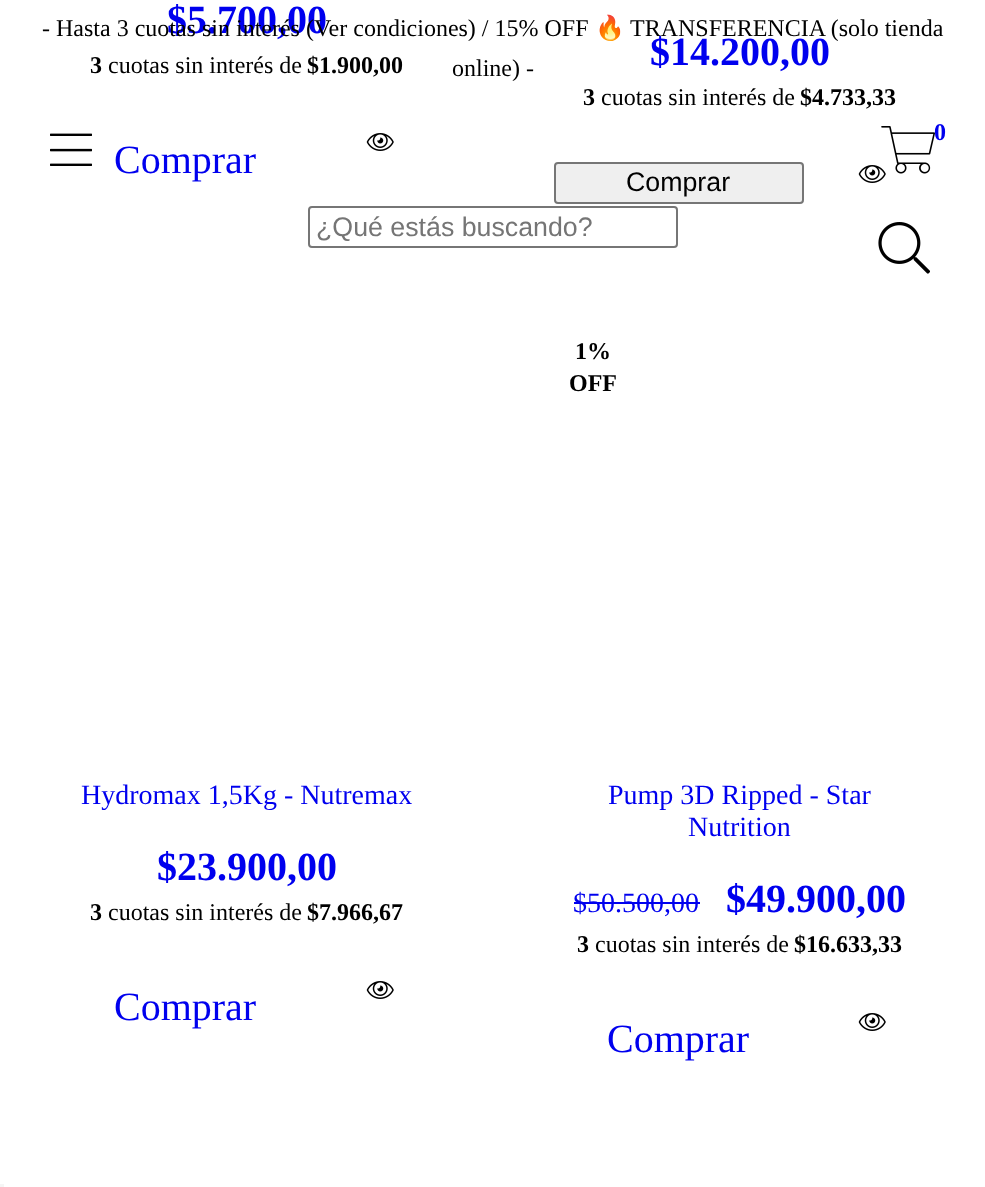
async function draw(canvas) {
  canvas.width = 985;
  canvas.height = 1187;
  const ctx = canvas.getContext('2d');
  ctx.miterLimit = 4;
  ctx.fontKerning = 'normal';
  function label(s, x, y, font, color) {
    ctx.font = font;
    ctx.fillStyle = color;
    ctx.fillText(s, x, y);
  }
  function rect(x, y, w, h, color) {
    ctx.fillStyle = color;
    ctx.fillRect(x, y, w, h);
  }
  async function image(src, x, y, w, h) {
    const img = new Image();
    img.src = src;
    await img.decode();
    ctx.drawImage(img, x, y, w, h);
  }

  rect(0, 0, 985, 1187, '#fff');
  label('$5.700,00', 167, 33, 'bold 40px Liberation Serif', '#00e');
  label('3', 90, 73, 'bold 24px Liberation Serif', '#000');
  label('cuotas sin interés de', 108, 73, '24px Liberation Serif', '#000');
  label('$1.900,00', 307, 73, 'bold 24px Liberation Serif', '#000');
  await image('assets/img1.png', 366, 133, 28, 18);
  label('Comprar', 114, 173, '40px Liberation Serif', '#00e');
  label('$14.200,00', 650, 65, 'bold 40px Liberation Serif', '#00e');
  label('3', 583, 105, 'bold 24px Liberation Serif', '#000');
  label('cuotas sin interés de', 601, 105, '24px Liberation Serif', '#000');
  label('$4.733,33', 800, 105, 'bold 24px Liberation Serif', '#000');
  ctx.fillStyle = '#efefef';
  ctx.beginPath();
  ctx.roundRect(555, 163, 248, 40, 3);
  ctx.fill();
  ctx.strokeStyle = '#767676';
  ctx.lineWidth = 2;
  ctx.stroke();
  label('Comprar', 626, 191, '26.75px Liberation Sans', '#000');
  await image('assets/img1.png', 858, 165, 28, 18);
  label('Hydromax 1,5Kg - Nutremax', 81, 804, '28px Liberation Serif', '#00e');
  label('$23.900,00', 157, 880, 'bold 40px Liberation Serif', '#00e');
  label('3', 90, 920, 'bold 24px Liberation Serif', '#000');
  label('cuotas sin interés de', 108, 920, '24px Liberation Serif', '#000');
  label('$7.966,67', 307, 920, 'bold 24px Liberation Serif', '#000');
  await image('assets/img1.png', 366, 981, 28, 18);
  label('Comprar', 114, 1020, '40px Liberation Serif', '#00e');
  label('1%', 575, 359, 'bold 24px Liberation Serif', '#000');
  label('OFF', 569, 391, 'bold 24px Liberation Serif', '#000');
  label('Pump 3D Ripped - Star', 608, 804, '28px Liberation Serif', '#00e');
  label('Nutrition', 688, 836, '28px Liberation Serif', '#00e');
  label('$50.500,00', 573, 912, '28px Liberation Serif', '#00e');
  rect(574, 902, 126, 2, '#00e');
  label('$49.900,00', 726, 912, 'bold 40px Liberation Serif', '#00e');
  label('3', 577, 952, 'bold 24px Liberation Serif', '#000');
  label('cuotas sin interés de', 595, 952, '24px Liberation Serif', '#000');
  label('$16.633,33', 794, 952, 'bold 24px Liberation Serif', '#000');
  await image('assets/img1.png', 858, 1013, 28, 18);
  label('Comprar', 607, 1052, '40px Liberation Serif', '#00e');
  label('- Hasta 3 cuotas sin interés (Ver condiciones) / 15% OFF', 42, 36, '24px Liberation Serif', '#000');
  label('🔥', 595, 36, '24px Noto Color Emoji', '#000');
  label('TRANSFERENCIA (solo tienda', 630, 36, '24px Liberation Serif', '#000');
  label('online) -', 452, 76, '24px Liberation Serif', '#000');
  await image('assets/img2.png', 50, 133, 42, 33);
  await image('assets/img3.png', 881, 126, 54, 48);
  label('0', 934, 140, 'bold 24px Liberation Serif', '#00e');
  ctx.beginPath();
  ctx.roundRect(309, 207, 368, 40, 3);
  ctx.stroke();
  label('¿Qué estás buscando?', 316, 236, '26.75px Liberation Sans', '#757575');
  await image('assets/img4.png', 878, 222, 52, 52);
  rect(0, 1184, 4, 3, '#f5f5f5');
}

draw(document.querySelector('canvas'));
